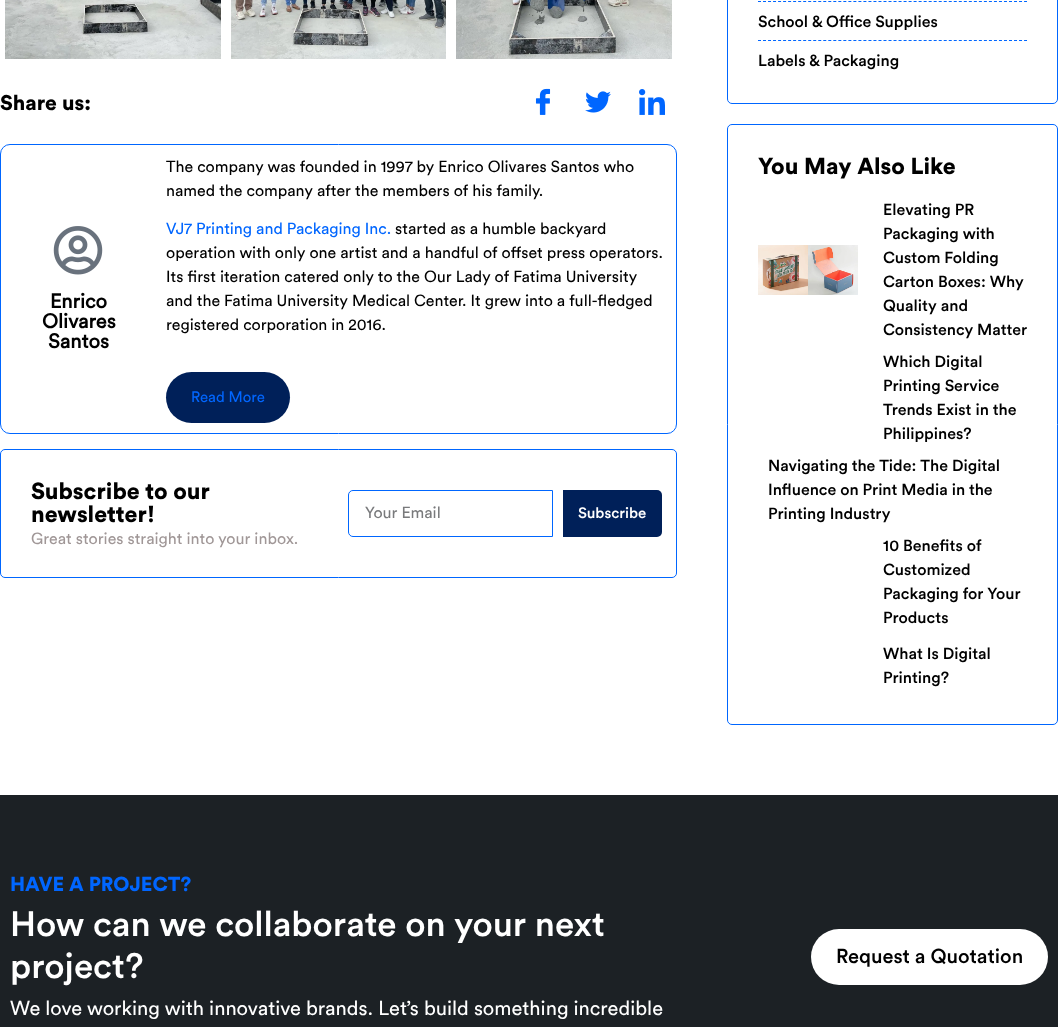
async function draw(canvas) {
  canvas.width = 1058;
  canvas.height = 1027;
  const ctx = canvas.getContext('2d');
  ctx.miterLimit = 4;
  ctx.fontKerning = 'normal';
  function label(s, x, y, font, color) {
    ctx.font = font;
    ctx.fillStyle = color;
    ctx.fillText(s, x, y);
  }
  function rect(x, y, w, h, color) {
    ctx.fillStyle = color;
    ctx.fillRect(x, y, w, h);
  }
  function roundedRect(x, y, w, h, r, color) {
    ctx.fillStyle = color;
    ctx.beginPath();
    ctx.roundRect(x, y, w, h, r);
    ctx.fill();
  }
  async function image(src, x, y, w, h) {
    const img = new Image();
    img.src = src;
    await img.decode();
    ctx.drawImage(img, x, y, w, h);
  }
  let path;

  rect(0, 0, 1058, 1027, '#fff');
  await image('assets/img1.png', 5, 0, 216, 59);
  await image('assets/img2.png', 231, 0, 215, 59);
  await image('assets/img3.png', 456, 0, 216, 59);
  label('Share us:', 0, 110, '900 21px Circular', '#000');
  await image('assets/img4.png', 535, 88, 16, 27);
  await image('assets/img5.png', 585, 91, 26, 22);
  await image('assets/img6.png', 639, 89, 26, 26);
  ctx.beginPath();
  ctx.roundRect(0.5, 144.5, 676, 289, 9.5);
  ctx.strokeStyle = '#06f';
  ctx.stroke();
  await image('assets/img7.png', 53, 226, 50, 49);
  label('Enrico', 50, 308, 'bold 20px Circular', '#000');
  label('Olivares', 42, 328, 'bold 20px Circular', '#000');
  label('Santos', 48, 348, 'bold 20px Circular', '#000');
  label('The company was founded in 1997 by Enrico Olivares Santos who', 166, 172, '16px Circular', '#000');
  label('named the company after the members of his family.', 166, 196, '16px Circular', '#000');
  label('VJ7 Printing and Packaging Inc.', 166, 234, '16px Circular', '#06f');
  label('started as a humble backyard', 395, 234, '16px Circular', '#000');
  label('operation with only one artist and a handful of offset press operators.', 166, 258, '16px Circular', '#000');
  label('Its first iteration catered only to the Our Lady of Fatima University', 166, 282, '16px Circular', '#000');
  label('and the Fatima University Medical Center. It grew into a full-fledged', 166, 306, '16px Circular', '#000');
  label('registered corporation in 2016.', 166, 330, '16px Circular', '#000');
  roundedRect(166, 372, 124, 51, 25.5, '#002059');
  label('Read More', 191, 402, '15px Circular', '#06f');
  ctx.beginPath();
  ctx.roundRect(0.5, 449.5, 676, 128, 4.5);
  ctx.stroke();
  label('Subscribe to our', 31, 499, '900 23px Circular', '#000');
  label('newsletter!', 31, 522, '900 23px Circular', '#000');
  label('Great stories straight into your inbox.', 31, 544, '16px Circular', '#a09797');
  ctx.beginPath();
  ctx.roundRect(348.5, 490.5, 204, 46, [4.5, 0, 0, 4.5]);
  ctx.stroke();
  label('Your Email', 365, 518, '16px Circular', '#797a7c');
  ctx.fillStyle = '#002059';
  ctx.beginPath();
  ctx.roundRect(563, 490, 99, 47, [0, 5, 5, 0]);
  ctx.fill();
  label('Subscribe', 578, 518, '500 15px Circular', '#fff');
  ctx.beginPath();
  ctx.roundRect(727.5, -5.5, 330, 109, 4.5);
  ctx.stroke();
  path = new Path2D('M758 1.5H1027');
  ctx.setLineDash([3, 2.02]);
  ctx.stroke(path);
  label('School & Office Supplies', 758, 27, '500 16px Circular', '#000');
  path = new Path2D('M758 40.5H1027');
  ctx.stroke(path);
  label('Labels & Packaging', 758, 66, '500 16px Circular', '#000');
  ctx.beginPath();
  ctx.roundRect(727.5, 124.5, 330, 600, 4.5);
  ctx.setLineDash([]);
  ctx.stroke();
  label('You May Also Like', 758, 174, '900 23px Circular', '#000');
  await image('assets/img8.png', 758, 245, 100, 50);
  label('Elevating PR', 883, 215, '500 16px Circular', '#000');
  label('Packaging with', 883, 239, '500 16px Circular', '#000');
  label('Custom Folding', 883, 263, '500 16px Circular', '#000');
  label('Carton Boxes: Why', 883, 287, '500 16px Circular', '#000');
  label('Quality and', 883, 311, '500 16px Circular', '#000');
  label('Consistency Matter', 883, 335, '500 16px Circular', '#000');
  label('Which Digital', 883, 367, '500 16px Circular', '#000');
  label('Printing Service', 883, 391, '500 16px Circular', '#000');
  label('Trends Exist in the', 883, 415, '500 16px Circular', '#000');
  label('Philippines?', 883, 439, '500 16px Circular', '#000');
  label('Navigating the Tide: The Digital', 768, 471, '500 16px Circular', '#000');
  label('Influence on Print Media in the', 768, 495, '500 16px Circular', '#000');
  label('Printing Industry', 768, 519, '500 16px Circular', '#000');
  label('10 Benefits of', 883, 551, '500 16px Circular', '#000');
  label('Customized', 883, 575, '500 16px Circular', '#000');
  label('Packaging for Your', 883, 599, '500 16px Circular', '#000');
  label('Products', 883, 623, '500 16px Circular', '#000');
  label('What Is Digital', 883, 659, '500 16px Circular', '#000');
  label('Printing?', 883, 683, '500 16px Circular', '#000');
  rect(0, 795, 1058, 232, '#1c2125');
  label('HAVE A PROJECT?', 10, 891, '900 20px Circular', '#06f');
  label('How can we collaborate on your next', 10, 936, '500 35px Circular', '#fff');
  label('project?', 10, 978, '500 35px Circular', '#fff');
  label('We love working with innovative brands. Let’s build something incredible', 10, 1015, '20px Circular', '#fff');
  roundedRect(811, 929, 237, 56, 28, '#fff');
  label('Request a Quotation', 836, 963, '500 20px Circular', '#000');
}

draw(document.querySelector('canvas'));
